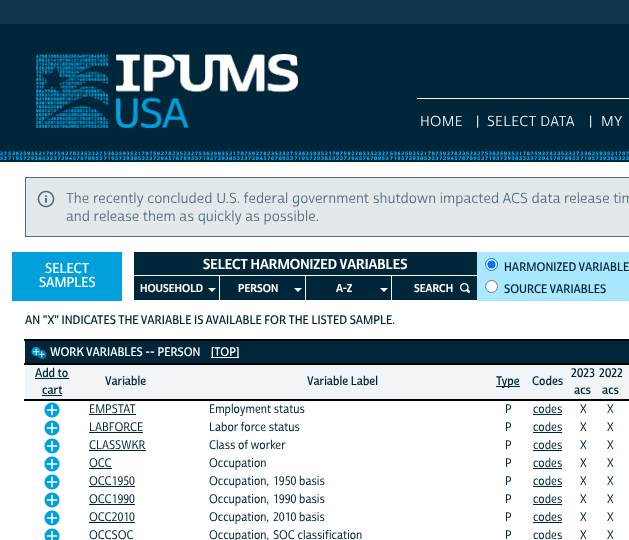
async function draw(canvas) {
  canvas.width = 629;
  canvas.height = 540;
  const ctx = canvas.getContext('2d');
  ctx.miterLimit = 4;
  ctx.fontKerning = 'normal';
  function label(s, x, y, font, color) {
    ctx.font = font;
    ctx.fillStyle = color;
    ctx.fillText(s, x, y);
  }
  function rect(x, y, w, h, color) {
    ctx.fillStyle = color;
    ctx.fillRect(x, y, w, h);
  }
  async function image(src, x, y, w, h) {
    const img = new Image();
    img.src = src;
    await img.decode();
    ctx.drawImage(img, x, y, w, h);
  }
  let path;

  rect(0, 0, 629, 540, '#11374b');
  rect(0, 24, 629, 138, '#00263a');
  await image('assets/img1.png', 0, 151, 629, 10);
  await image('assets/img2.png', 36, 54, 262, 74);
  rect(417, 98, 212, 1, '#f5f8f9');
  ctx.letterSpacing = '0.3px';
  label('HOME', 420, 126, '500 14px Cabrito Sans', '#f5f8f9');
  label('|', 476, 126, '500 14px Cabrito Sans', '#f5f8f9');
  label('SELECT DATA', 487, 126, '500 14px Cabrito Sans', '#f5f8f9');
  label('|', 589, 126, '500 14px Cabrito Sans', '#f5f8f9');
  label('MY', 601, 126, '500 14px Cabrito Sans', '#f5f8f9');
  rect(0, 162, 629, 378, '#fff');
  rect(26, 178, 603, 58, '#e3e8ea');
  await image('assets/img3.png', 37, 190, 18, 18);
  ctx.strokeStyle = '#4e6c7d';
  ctx.strokeRect(25.5, 177.5, 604, 59);
  ctx.letterSpacing = '0px';
  label('The recently concluded U.S. federal government shutdown impacted ACS data release tim', 66, 203, '500 14px Cabrito Sans', '#4e6c7d');
  label('and release them as quickly as possible.', 66, 221, '500 14px Cabrito Sans', '#4e6c7d');
  rect(12, 252, 110, 49, '#00a0dc');
  label('SELECT', 45, 273, 'bold 14px Cabrito Sans', '#fff');
  label('SAMPLES', 39, 287, 'bold 14px Cabrito Sans', '#fff');
  rect(134, 252, 343, 23, '#00263a');
  label('SELECT HARMONIZED VARIABLES', 203, 269, '800 14px Cabrito Sans', '#fff');
  rect(134, 276, 85, 24, '#00263a');
  label('HOUSEHOLD', 140, 292, '800 11px Cabrito Sans', '#fff');
  path = new Path2D('M208 288H216L212 292Z');
  ctx.fill(path);
  rect(220, 276, 85, 24, '#00263a');
  label('PERSON', 238, 292, '800 11px Cabrito Sans', '#fff');
  path = new Path2D('M294 288H302L298 292Z');
  ctx.fill(path);
  rect(306, 276, 85, 24, '#00263a');
  label('A-Z', 336, 292, '800 11px Cabrito Sans', '#fff');
  path = new Path2D('M380 288H388L384 292Z');
  ctx.fill(path);
  rect(392, 276, 85, 24, '#00263a');
  await image('assets/img4.png', 460, 283, 10, 10);
  label('SEARCH', 414, 292, '800 11px Cabrito Sans', '#fff');
  rect(477, 252, 152, 49, '#a9e8ff');
  ctx.fillStyle = '#fff';
  ctx.beginPath();
  ctx.arc(491.5, 264.5, 6, 0, 2 * Math.PI);
  ctx.fill();
  ctx.strokeStyle = '#0075ff';
  ctx.stroke();
  ctx.fillStyle = '#0075ff';
  ctx.beginPath();
  ctx.arc(491.5, 264.5, 4, 0, 2 * Math.PI);
  ctx.fill();
  label('HARMONIZED VARIABLE', 504, 271, 'bold 12px Cabrito Sans', '#00263a');
  ctx.fillStyle = '#fff';
  ctx.beginPath();
  ctx.arc(491.5, 286.5, 6, 0, 2 * Math.PI);
  ctx.fill();
  ctx.strokeStyle = '#767676';
  ctx.stroke();
  label('SOURCE VARIABLES', 504, 293, 'bold 12px Cabrito Sans', '#00263a');
  label('AN "X" INDICATES THE VARIABLE IS AVAILABLE FOR THE LISTED SAMPLE.', 25, 324, 'bold 12px Cabrito Sans', '#00263a');
  rect(25, 341, 604, 22, '#00263a');
  rect(24, 339, 605, 2, '#000');
  await image('assets/img5.png', 31, 347, 16, 12);
  label('WORK VARIABLES -- PERSON', 50, 356, 'bold 12px Cabrito Sans', '#fff');
  rect(211, 357, 28, 1, '#fff');
  label('[TOP]', 211, 356, 'bold 12px Cabrito Sans', '#fff');
  rect(624, 364, 5, 36, '#f1f5f7');
  rect(24, 363, 605, 2, '#000');
  rect(24, 399, 605, 2, '#000');
  rect(25, 365, 599, 34, '#f1f5f7');
  label('Add to', 35, 377, 'bold 12px Cabrito Sans', '#00263a');
  rect(35, 378, 34, 1, '#00263a');
  label('cart', 42, 394, 'bold 12px Cabrito Sans', '#00263a');
  rect(42, 395, 20, 1, '#00263a');
  label('Variable', 105, 385, 'bold 12px Cabrito Sans', '#00263a');
  label('Variable Label', 307, 385, 'bold 12px Cabrito Sans', '#00263a');
  rect(496, 386, 24, 1, '#00263a');
  label('Type', 496, 385, 'bold 12px Cabrito Sans', '#00263a');
  label('Codes', 532, 385, 'bold 12px Cabrito Sans', '#00263a');
  label('2023', 571, 377, 'bold 12px Cabrito Sans', '#00263a');
  label('acs', 574, 394, 'bold 12px Cabrito Sans', '#00263a');
  label('2022', 599, 377, 'bold 12px Cabrito Sans', '#00263a');
  label('acs', 602, 394, 'bold 12px Cabrito Sans', '#00263a');
  await image('assets/img6.png', 44, 402, 16, 16);
  label('EMPSTAT', 89, 413, '600 12px Cabrito Sans', '#00263a');
  rect(89, 414, 47, 1, '#00263a');
  label('Employment status', 209, 413, '600 12px Cabrito Sans', '#00263a');
  label('P', 505, 413, '600 12px Cabrito Sans', '#00263a');
  label('codes', 533, 413, '600 12px Cabrito Sans', '#00263a');
  rect(533, 414, 29, 1, '#00263a');
  label('X', 580, 413, '600 12px Cabrito Sans', '#00263a');
  label('X', 607, 413, '600 12px Cabrito Sans', '#00263a');
  await image('assets/img6.png', 44, 420, 16, 16);
  label('LABFORCE', 89, 431, '600 12px Cabrito Sans', '#00263a');
  rect(89, 432, 54, 1, '#00263a');
  label('Labor force status', 209, 431, '600 12px Cabrito Sans', '#00263a');
  label('P', 505, 431, '600 12px Cabrito Sans', '#00263a');
  label('codes', 533, 431, '600 12px Cabrito Sans', '#00263a');
  rect(533, 432, 29, 1, '#00263a');
  label('X', 580, 431, '600 12px Cabrito Sans', '#00263a');
  label('X', 607, 431, '600 12px Cabrito Sans', '#00263a');
  await image('assets/img6.png', 44, 438, 16, 16);
  label('CLASSWKR', 89, 449, '600 12px Cabrito Sans', '#00263a');
  rect(89, 450, 57, 1, '#00263a');
  label('Class of worker', 209, 449, '600 12px Cabrito Sans', '#00263a');
  label('P', 505, 449, '600 12px Cabrito Sans', '#00263a');
  label('codes', 533, 449, '600 12px Cabrito Sans', '#00263a');
  rect(533, 450, 29, 1, '#00263a');
  label('X', 580, 449, '600 12px Cabrito Sans', '#00263a');
  label('X', 607, 449, '600 12px Cabrito Sans', '#00263a');
  await image('assets/img6.png', 44, 456, 16, 16);
  label('OCC', 89, 467, '600 12px Cabrito Sans', '#00263a');
  rect(89, 468, 23, 1, '#00263a');
  label('Occupation', 209, 467, '600 12px Cabrito Sans', '#00263a');
  label('P', 505, 467, '600 12px Cabrito Sans', '#00263a');
  label('codes', 533, 467, '600 12px Cabrito Sans', '#00263a');
  rect(533, 468, 29, 1, '#00263a');
  label('X', 580, 467, '600 12px Cabrito Sans', '#00263a');
  label('X', 607, 467, '600 12px Cabrito Sans', '#00263a');
  await image('assets/img6.png', 44, 474, 16, 16);
  label('OCC1950', 89, 485, '600 12px Cabrito Sans', '#00263a');
  rect(89, 486, 46, 1, '#00263a');
  label('Occupation', 209, 485, '600 12px Cabrito Sans', '#00263a');
  label(',', 266, 485, '12px Liberation Sans', '#00263a');
  label('1950 basis', 273, 485, '600 12px Cabrito Sans', '#00263a');
  label('P', 505, 485, '600 12px Cabrito Sans', '#00263a');
  label('codes', 533, 485, '600 12px Cabrito Sans', '#00263a');
  rect(533, 486, 29, 1, '#00263a');
  label('X', 580, 485, '600 12px Cabrito Sans', '#00263a');
  label('X', 607, 485, '600 12px Cabrito Sans', '#00263a');
  await image('assets/img6.png', 44, 492, 16, 16);
  label('OCC1990', 89, 503, '600 12px Cabrito Sans', '#00263a');
  rect(89, 504, 46, 1, '#00263a');
  label('Occupation', 209, 503, '600 12px Cabrito Sans', '#00263a');
  label(',', 266, 503, '12px Liberation Sans', '#00263a');
  label('1990 basis', 273, 503, '600 12px Cabrito Sans', '#00263a');
  label('P', 505, 503, '600 12px Cabrito Sans', '#00263a');
  label('codes', 533, 503, '600 12px Cabrito Sans', '#00263a');
  rect(533, 504, 29, 1, '#00263a');
  label('X', 580, 503, '600 12px Cabrito Sans', '#00263a');
  label('X', 607, 503, '600 12px Cabrito Sans', '#00263a');
  await image('assets/img6.png', 44, 510, 16, 16);
  label('OCC2010', 89, 521, '600 12px Cabrito Sans', '#00263a');
  rect(89, 522, 46, 1, '#00263a');
  label('Occupation', 209, 521, '600 12px Cabrito Sans', '#00263a');
  label(',', 266, 521, '12px Liberation Sans', '#00263a');
  label('2010 basis', 273, 521, '600 12px Cabrito Sans', '#00263a');
  label('P', 505, 521, '600 12px Cabrito Sans', '#00263a');
  label('codes', 533, 521, '600 12px Cabrito Sans', '#00263a');
  rect(533, 522, 29, 1, '#00263a');
  label('X', 580, 521, '600 12px Cabrito Sans', '#00263a');
  label('X', 607, 521, '600 12px Cabrito Sans', '#00263a');
  await image('assets/img7.png', 44, 528, 16, 12);
  label('OCCSOC', 89, 539, '600 12px Cabrito Sans', '#00263a');
  label('Occupation', 209, 539, '600 12px Cabrito Sans', '#00263a');
  label(',', 266, 539, '12px Liberation Sans', '#00263a');
  label('SOC classification', 273, 539, '600 12px Cabrito Sans', '#00263a');
  label('P', 505, 539, '600 12px Cabrito Sans', '#00263a');
  label('codes', 533, 539, '600 12px Cabrito Sans', '#00263a');
  label('X', 580, 539, '600 12px Cabrito Sans', '#00263a');
  label('X', 607, 539, '600 12px Cabrito Sans', '#00263a');
}

draw(document.querySelector('canvas'));
